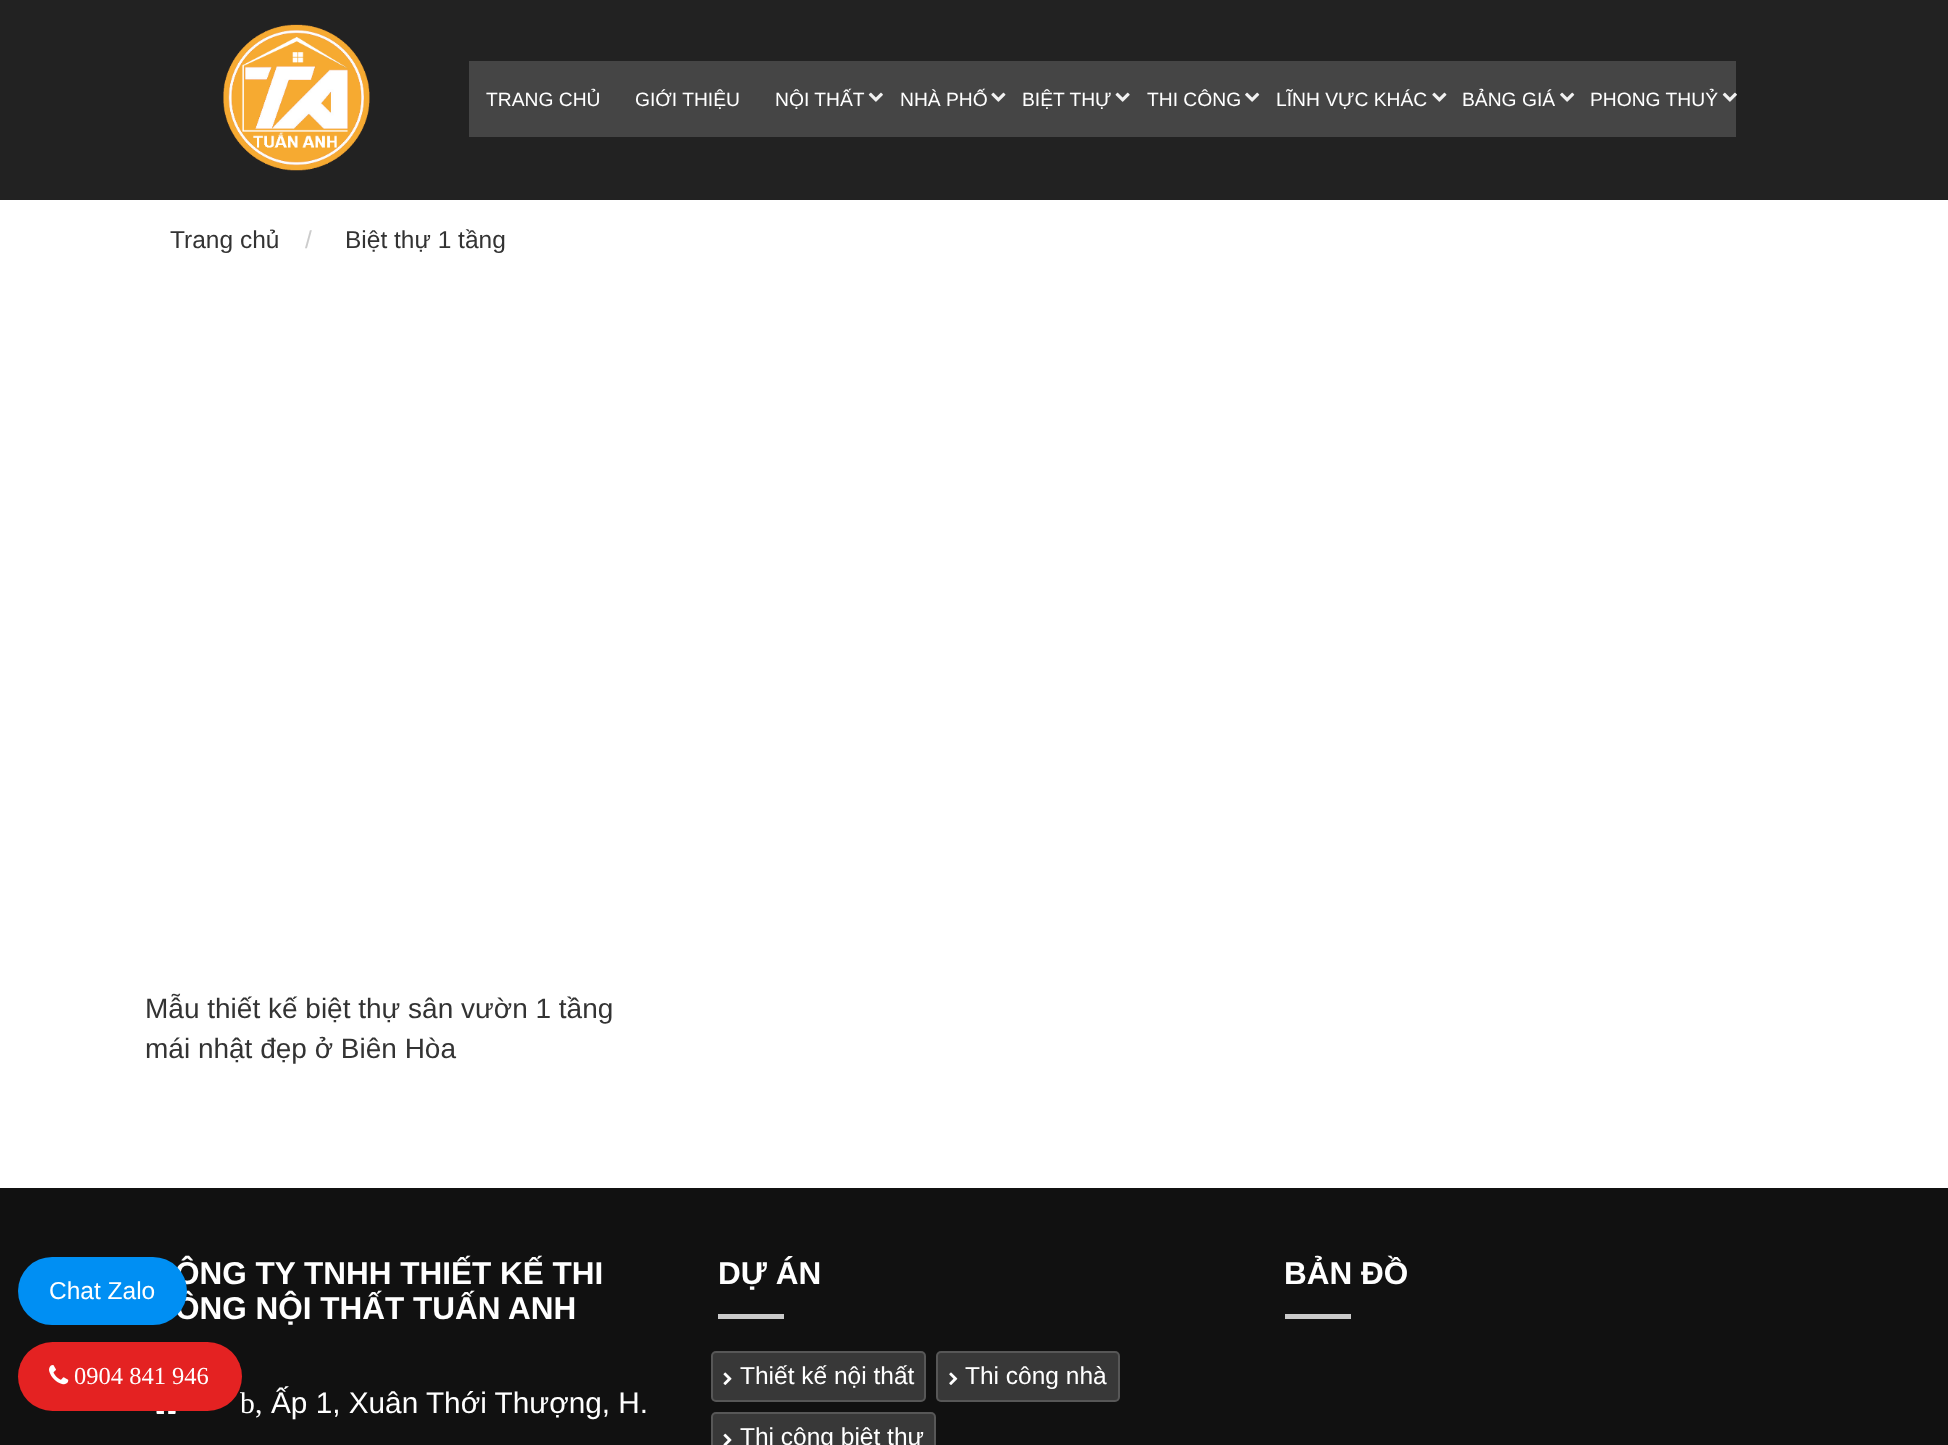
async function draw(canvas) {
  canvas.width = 1948;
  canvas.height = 1445;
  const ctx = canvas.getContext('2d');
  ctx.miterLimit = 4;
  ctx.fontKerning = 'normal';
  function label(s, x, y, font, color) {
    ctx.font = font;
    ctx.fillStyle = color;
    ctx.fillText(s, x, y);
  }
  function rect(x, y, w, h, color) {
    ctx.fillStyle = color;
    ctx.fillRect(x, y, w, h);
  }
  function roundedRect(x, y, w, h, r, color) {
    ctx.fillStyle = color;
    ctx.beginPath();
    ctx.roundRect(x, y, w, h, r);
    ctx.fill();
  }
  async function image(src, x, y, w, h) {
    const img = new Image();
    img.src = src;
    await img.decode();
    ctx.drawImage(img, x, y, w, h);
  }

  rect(0, 0, 1948, 1445, '#fff');
  rect(0, 0, 1948, 200, '#222');
  await image('assets/img1.png', 223, 24, 147, 147);
  rect(469, 61, 1267, 76, '#454545');
  label('TRANG CHỦ', 486, 106, '19.25px Liberation Sans', '#fff');
  label('GIỚI THIỆU', 635, 106, '19.25px Liberation Sans', '#fff');
  label('NỘI THẤT', 775, 106, '19.25px Liberation Sans', '#fff');
  await image('assets/img2.png', 868, 92, 15, 10);
  label('NHÀ PHỐ', 900, 106, '19.25px Liberation Sans', '#fff');
  await image('assets/img3.png', 991, 92, 15, 10);
  label('BIỆT THỰ', 1022, 106, '19.25px Liberation Sans', '#fff');
  await image('assets/img4.png', 1115, 92, 15, 10);
  label('THI CÔNG', 1147, 106, '19.25px Liberation Sans', '#fff');
  await image('assets/img5.png', 1245, 92, 15, 10);
  label('LĨNH VỰC KHÁC', 1276, 106, '19.25px Liberation Sans', '#fff');
  await image('assets/img3.png', 1432, 92, 15, 10);
  label('BẢNG GIÁ', 1462, 106, '19.25px Liberation Sans', '#fff');
  await image('assets/img5.png', 1560, 92, 15, 10);
  label('PHONG THUỶ', 1590, 106, '19.25px Liberation Sans', '#fff');
  await image('assets/img6.png', 1722, 92, 15, 10);
  label('Trang chủ', 170, 248, '24.5px Liberation Sans', '#333');
  label('/', 305, 248, '24.5px Liberation Sans', '#ccc');
  label('Biệt thự 1 tầng', 345, 248, '24.5px Liberation Sans', '#333');
  label('Mẫu thiết kế biệt thự sân vườn 1 tầng', 145, 1018, '28px Liberation Sans', '#333');
  label('mái nhật đẹp ở Biên Hòa', 145, 1058, '28px Liberation Sans', '#333');
  rect(0, 1188, 1948, 257, '#111');
  label('ÔNG TY TNHH THIẾT KẾ THI', 175, 1284, 'bold 31.5px Liberation Sans', '#fff');
  label('ÔNG NỘI THẤT TUẤN ANH', 175, 1319, 'bold 31.5px Liberation Sans', '#fff');
  roundedRect(18, 1257, 169, 68, 34, '#008ff3');
  label('Chat Zalo', 49, 1299, '24.5px Liberation Sans', '#fff');
  label('b,', 240, 1413, '29.75px Liberation Serif', '#fff');
  roundedRect(18, 1342, 224, 69, 34.5, '#e42222');
  await image('assets/img7.png', 49, 1365, 20, 20);
  label('0904 841 946', 74, 1384, '24.5px Liberation Serif', '#fff');
  await image('assets/img8.png', 156, 1411, 20, 3);
  label('Ấp 1, Xuân Thới Thượng, H.', 271, 1413, '29.75px Liberation Sans', '#fff');
  label('DỰ ÁN', 718, 1284, 'bold 31.5px Liberation Sans', '#fff');
  rect(718, 1314, 66, 5, '#cacaca');
  roundedRect(711, 1351, 215, 51, 5, '#383838');
  ctx.beginPath();
  ctx.roundRect(712, 1352, 213, 49, 4);
  ctx.strokeStyle = '#cacaca36';
  ctx.lineWidth = 2;
  ctx.stroke();
  await image('assets/img9.png', 723, 1372, 9, 13);
  label('Thiết kế nội thất', 740, 1384, '24.5px Liberation Sans', '#fff');
  roundedRect(936, 1351, 184, 51, 5, '#383838');
  ctx.beginPath();
  ctx.roundRect(937, 1352, 182, 49, 4);
  ctx.stroke();
  await image('assets/img10.png', 949, 1372, 9, 13);
  label('Thi công nhà', 965, 1384, '24.5px Liberation Sans', '#fff');
  roundedRect(711, 1412, 225, 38, 5, '#383838');
  ctx.beginPath();
  ctx.roundRect(712, 1413, 223, 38, 4);
  ctx.stroke();
  await image('assets/img11.png', 723, 1433, 9, 12);
  label('Thi công biệt thự', 740, 1445, '24.5px Liberation Sans', '#fff');
  label('BẢN ĐỒ', 1284, 1284, 'bold 31.5px Liberation Sans', '#fff');
  rect(1285, 1314, 66, 5, '#cacaca');
}

draw(document.querySelector('canvas'));
